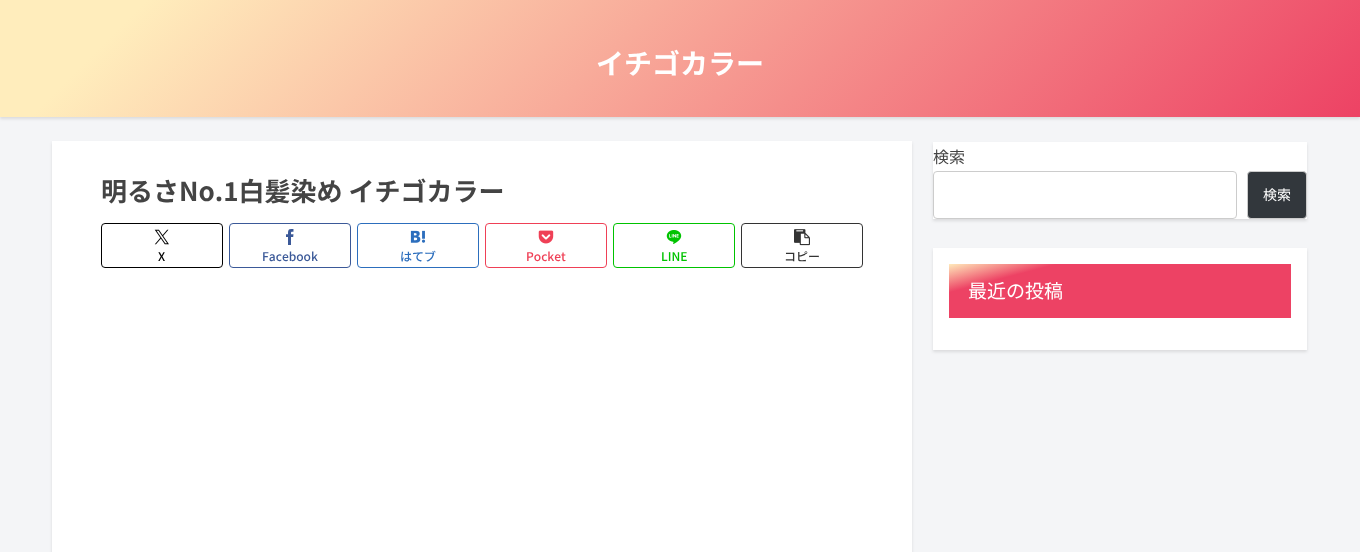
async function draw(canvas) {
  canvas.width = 1360;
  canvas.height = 552;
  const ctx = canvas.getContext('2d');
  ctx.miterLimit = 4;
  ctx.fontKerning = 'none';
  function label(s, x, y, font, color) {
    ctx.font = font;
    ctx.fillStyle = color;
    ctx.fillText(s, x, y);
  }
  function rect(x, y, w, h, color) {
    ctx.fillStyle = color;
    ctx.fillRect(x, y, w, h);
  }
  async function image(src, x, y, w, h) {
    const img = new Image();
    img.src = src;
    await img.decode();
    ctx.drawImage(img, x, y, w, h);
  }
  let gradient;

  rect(0, 0, 1360, 552, '#f4f5f7');
  ctx.fillStyle = '#0000001a';
  ctx.filter = 'blur(1.5px)';
  ctx.beginPath();
  ctx.rect(0, 2, 1360, 117);
  ctx.fill();
  ctx.filter = 'none';
  gradient = ctx.createLinearGradient(311, -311, 1049, 428);
  gradient.addColorStop(0.1, '#ffedbc');
  gradient.addColorStop(1, '#ed4264');
  ctx.fillStyle = gradient;
  ctx.fillRect(0, 0, 1360, 117);
  label('イチゴカラー', 596, 74, 'bold 28px Noto Sans JP', '#fff');
  ctx.fillStyle = '#0000001a';
  ctx.filter = 'blur(1.5px)';
  ctx.beginPath();
  ctx.rect(52, 143, 860, 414);
  ctx.fill();
  ctx.filter = 'none';
  rect(52, 141, 860, 411, '#fff');
  label('明るさNo.1白髪染め イチゴカラー', 101, 201, 'bold 26px Noto Sans JP', '#444');
  ctx.beginPath();
  ctx.roundRect(101.5, 223.5, 121, 44, 3.5);
  ctx.strokeStyle = '#000';
  ctx.stroke();
  await image('assets/img1.png', 154, 229, 15, 16);
  label('X', 158, 261, '500 12px Noto Sans JP', '#000');
  ctx.beginPath();
  ctx.roundRect(229.5, 223.5, 121, 44, 3.5);
  ctx.strokeStyle = '#3b5998';
  ctx.stroke();
  await image('assets/img2.png', 286, 229, 8, 16);
  label('Facebook', 262, 261, '500 12px Noto Sans JP', '#3b5998');
  ctx.beginPath();
  ctx.roundRect(357.5, 223.5, 121, 44, 3.5);
  ctx.strokeStyle = '#2c6ebd';
  ctx.stroke();
  await image('assets/img3.png', 410, 230, 16, 13);
  label('はてブ', 400, 261, '500 12px Noto Sans JP', '#2c6ebd');
  ctx.beginPath();
  ctx.roundRect(485.5, 223.5, 121, 44, 3.5);
  ctx.strokeStyle = '#ef4056';
  ctx.stroke();
  await image('assets/img4.png', 538, 230, 16, 14);
  label('Pocket', 526, 261, '500 12px Noto Sans JP', '#ef4056');
  ctx.beginPath();
  ctx.roundRect(613.5, 223.5, 121, 44, 3.5);
  ctx.strokeStyle = '#00c300';
  ctx.stroke();
  await image('assets/img5.png', 666, 230, 16, 14);
  label('LINE', 661, 261, '500 12px Noto Sans JP', '#00c300');
  ctx.beginPath();
  ctx.roundRect(741.5, 223.5, 121, 44, 3.5);
  ctx.strokeStyle = '#333';
  ctx.stroke();
  await image('assets/img6.png', 794, 229, 16, 17);
  label('コピー', 784, 261, '500 12px Noto Sans JP', '#333');
  ctx.fillStyle = '#0000001a';
  ctx.filter = 'blur(1.5px)';
  ctx.beginPath();
  ctx.rect(933, 144, 374, 77);
  ctx.fill();
  ctx.filter = 'none';
  rect(933, 142, 374, 77, '#fff');
  label('検索', 933, 163, '16px Noto Sans JP', '#444');
  ctx.beginPath();
  ctx.roundRect(933.5, 171.5, 303, 47, 3.5);
  ctx.strokeStyle = '#ccc';
  ctx.stroke();
  ctx.fillStyle = '#32373c';
  ctx.beginPath();
  ctx.roundRect(1247.5, 171.5, 59, 47, 3.5);
  ctx.fill();
  ctx.stroke();
  label('検索', 1263, 200, '14px Noto Sans JP', '#fff');
  ctx.fillStyle = '#0000001a';
  ctx.filter = 'blur(1.5px)';
  ctx.beginPath();
  ctx.rect(933, 250, 374, 102);
  ctx.fill();
  ctx.filter = 'none';
  rect(933, 248, 374, 102, '#fff');
  gradient = ctx.createLinearGradient(1102, 223, 1138, 359);
  gradient.addColorStop(0, '#ffedbc');
  gradient.addColorStop(0.2, '#ed4264');
  ctx.fillStyle = gradient;
  ctx.fillRect(949, 264, 342, 54);
  label('最近の投稿', 968, 298, '19px Noto Sans JP', '#fff');
}

draw(document.querySelector('canvas'));
